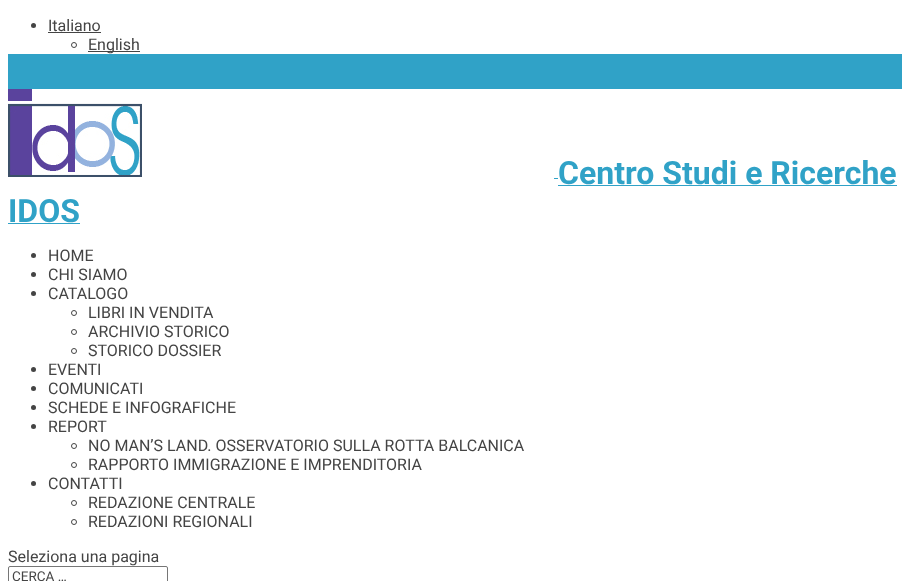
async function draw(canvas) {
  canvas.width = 910;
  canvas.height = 581;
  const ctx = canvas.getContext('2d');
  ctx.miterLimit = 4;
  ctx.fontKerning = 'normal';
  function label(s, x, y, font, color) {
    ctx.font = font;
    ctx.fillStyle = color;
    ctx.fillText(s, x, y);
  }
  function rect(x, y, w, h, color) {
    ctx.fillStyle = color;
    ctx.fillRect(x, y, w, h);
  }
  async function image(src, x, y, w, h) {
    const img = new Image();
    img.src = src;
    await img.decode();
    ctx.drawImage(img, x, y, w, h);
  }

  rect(0, 0, 910, 581, '#fff');
  rect(8, 54, 894, 35, '#30a2c7');
  ctx.fillStyle = '#444';
  ctx.beginPath();
  ctx.arc(33.5, 25.5, 2.5, 0, 2 * Math.PI);
  ctx.fill();
  label('Italiano', 48, 31, '16px Roboto', '#444');
  rect(48, 32, 53, 1, '#444');
  ctx.beginPath();
  ctx.arc(74, 45, 2.5, 0, 2 * Math.PI);
  ctx.strokeStyle = '#444';
  ctx.stroke();
  rect(88, 51, 52, 1, '#444');
  label('English', 88, 50, '16px Roboto', '#444');
  await image('assets/img1.png', 8, 89, 134, 88);
  label('Centro Studi e Ricerche', 558, 184, 'bold 32px Roboto', '#30a2c7');
  rect(554, 178, 4, 1, '#30a2c7');
  rect(558, 185, 339, 1, '#30a2c7');
  label('IDOS', 8, 222, 'bold 32px Roboto', '#30a2c7');
  rect(8, 223, 72, 1, '#30a2c7');
  ctx.fillStyle = '#444';
  ctx.beginPath();
  ctx.arc(33.5, 255.5, 2.5, 0, 2 * Math.PI);
  ctx.fill();
  label('HOME', 48, 261, '16px Roboto', '#444');
  ctx.beginPath();
  ctx.arc(33.5, 274.5, 2.5, 0, 2 * Math.PI);
  ctx.fill();
  label('CHI SIAMO', 48, 280, '16px Roboto', '#444');
  ctx.beginPath();
  ctx.arc(33.5, 293.5, 2.5, 0, 2 * Math.PI);
  ctx.fill();
  label('CATALOGO', 48, 299, '16px Roboto', '#444');
  ctx.beginPath();
  ctx.arc(74, 313, 2.5, 0, 2 * Math.PI);
  ctx.stroke();
  label('LIBRI IN VENDITA', 88, 318, '16px Roboto', '#444');
  ctx.beginPath();
  ctx.arc(74, 332, 2.5, 0, 2 * Math.PI);
  ctx.stroke();
  label('ARCHIVIO STORICO', 88, 337, '16px Roboto', '#444');
  ctx.beginPath();
  ctx.arc(74, 351, 2.5, 0, 2 * Math.PI);
  ctx.stroke();
  label('STORICO DOSSIER', 88, 356, '16px Roboto', '#444');
  ctx.beginPath();
  ctx.arc(33.5, 369.5, 2.5, 0, 2 * Math.PI);
  ctx.fill();
  label('EVENTI', 48, 375, '16px Roboto', '#444');
  ctx.beginPath();
  ctx.arc(33.5, 388.5, 2.5, 0, 2 * Math.PI);
  ctx.fill();
  label('COMUNICATI', 48, 394, '16px Roboto', '#444');
  ctx.beginPath();
  ctx.arc(33.5, 407.5, 2.5, 0, 2 * Math.PI);
  ctx.fill();
  label('SCHEDE E INFOGRAFICHE', 48, 413, '16px Roboto', '#444');
  ctx.beginPath();
  ctx.arc(33.5, 426.5, 2.5, 0, 2 * Math.PI);
  ctx.fill();
  label('REPORT', 48, 432, '16px Roboto', '#444');
  ctx.beginPath();
  ctx.arc(74, 446, 2.5, 0, 2 * Math.PI);
  ctx.stroke();
  label('NO MAN’S LAND. OSSERVATORIO SULLA ROTTA BALCANICA', 88, 451, '16px Roboto', '#444');
  ctx.beginPath();
  ctx.arc(74, 465, 2.5, 0, 2 * Math.PI);
  ctx.stroke();
  label('RAPPORTO IMMIGRAZIONE E IMPRENDITORIA', 88, 470, '16px Roboto', '#444');
  ctx.beginPath();
  ctx.arc(33.5, 483.5, 2.5, 0, 2 * Math.PI);
  ctx.fill();
  label('CONTATTI', 48, 489, '16px Roboto', '#444');
  ctx.beginPath();
  ctx.arc(74, 503, 2.5, 0, 2 * Math.PI);
  ctx.stroke();
  label('REDAZIONE CENTRALE', 88, 508, '16px Roboto', '#444');
  ctx.beginPath();
  ctx.arc(74, 522, 2.5, 0, 2 * Math.PI);
  ctx.stroke();
  label('REDAZIONI REGIONALI', 88, 527, '16px Roboto', '#444');
  label('Seleziona una pagina', 8, 562, '16px Roboto', '#444');
  ctx.beginPath();
  ctx.roundRect(8.5, 566.5, 159, 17, 1.5);
  ctx.strokeStyle = '#767676';
  ctx.stroke();
  label('CERCA …', 12, 581, '13.5px Roboto', '#444');
}

draw(document.querySelector('canvas'));
